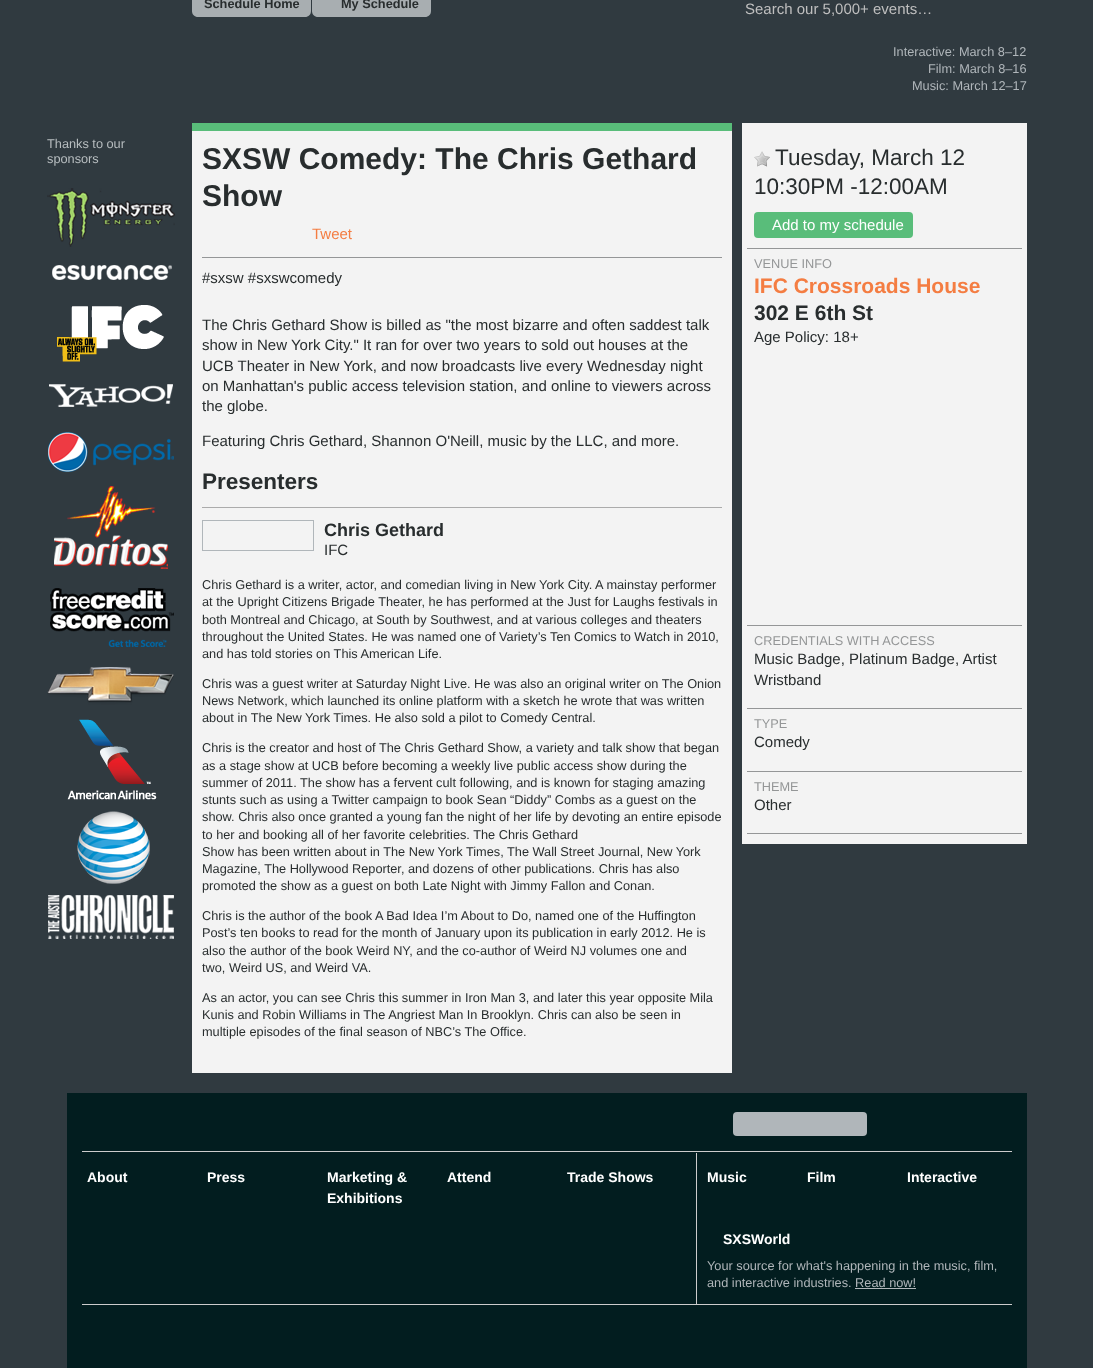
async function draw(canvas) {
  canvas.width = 1093;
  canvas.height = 1368;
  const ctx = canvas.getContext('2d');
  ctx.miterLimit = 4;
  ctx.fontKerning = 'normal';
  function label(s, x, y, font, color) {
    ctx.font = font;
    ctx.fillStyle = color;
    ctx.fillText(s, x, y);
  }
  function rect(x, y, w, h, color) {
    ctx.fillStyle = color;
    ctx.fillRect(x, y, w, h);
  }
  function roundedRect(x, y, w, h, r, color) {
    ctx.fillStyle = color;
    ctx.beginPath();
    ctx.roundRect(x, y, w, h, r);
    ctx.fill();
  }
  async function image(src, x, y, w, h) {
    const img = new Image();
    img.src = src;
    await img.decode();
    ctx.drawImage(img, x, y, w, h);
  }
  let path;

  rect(0, 0, 1093, 1368, '#303a40');
  ctx.fillStyle = '#a8aeb1';
  path = new Path2D('M192-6H311V11C311 14.5 308.5 17 305 17H198C194.5 17 192 14.5 192 11Z');
  ctx.fill(path);
  label('Schedule Home', 204, 8, 'bold 12.75px Liberation Sans', '#282d2e');
  ctx.fillStyle = '#a8aeb1';
  path = new Path2D('M312-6H431V11C431 14.5 428.5 17 425 17H318C314.5 17 312 14.5 312 11Z');
  ctx.fill(path);
  label('My Schedule', 341, 8, 'bold 12.75px Liberation Sans', '#282d2e');
  label('Search our 5,000+ events…', 745, 14, '15px Liberation Sans', '#bfbfbf');
  label('Interactive: March 8–12', 893, 56, '12.75px Liberation Sans', '#b0b6ba');
  label('Film: March 8–16', 928, 73, '12.75px Liberation Sans', '#b0b6ba');
  label('Music: March 12–17', 912, 90, '12.75px Liberation Sans', '#b0b6ba');
  label('Thanks to our', 47, 148, '12.75px Liberation Sans', '#b8bec0');
  label('sponsors', 47, 163, '12.75px Liberation Sans', '#b8bec0');
  await image('assets/img1.png', 47, 188, 128, 751);
  rect(192, 131, 540, 942, '#f3f3f3');
  rect(192, 123, 540, 8, '#59bd7a');
  label('SXSW Comedy: The Chris Gethard', 202, 169, 'bold 30px Liberation Sans', '#282d2e');
  label('Show', 202, 206, 'bold 30px Liberation Sans', '#282d2e');
  rect(202, 257, 520, 1, '#949697');
  label('Tweet', 312, 239, '15px Liberation Sans', '#f47d42');
  label('#sxsw #sxswcomedy', 202, 283, '15px Liberation Sans', '#282d2e');
  label('The Chris Gethard Show is billed as "the most bizarre and often saddest talk', 202, 330, '15px Liberation Sans', '#282d2e');
  label('show in New York City." It ran for over two years to sold out houses at the', 202, 350, '15px Liberation Sans', '#282d2e');
  label('UCB Theater in New York, and now broadcasts live every Wednesday night', 202, 371, '15px Liberation Sans', '#282d2e');
  label('on Manhattan\'s public access television station, and online to viewers across', 202, 391, '15px Liberation Sans', '#282d2e');
  label('the globe.', 202, 411, '15px Liberation Sans', '#282d2e');
  label('Featuring Chris Gethard, Shannon O\'Neill, music by the LLC, and more.', 202, 446, '15px Liberation Sans', '#282d2e');
  label('Presenters', 202, 489, 'bold 22.5px Liberation Sans', '#282d2e');
  rect(202, 507, 520, 1, '#ababab');
  ctx.strokeStyle = '#b0b6ba';
  ctx.strokeRect(202.5, 520.5, 111, 30);
  label('Chris Gethard', 324, 536, 'bold 18px Liberation Sans', '#282d2e');
  label('IFC', 324, 555, '15px Liberation Sans', '#282d2e');
  label('Chris Gethard is a writer, actor, and comedian living in New York City. A mainstay performer', 202, 589, '12.75px Liberation Sans', '#282d2e');
  label('at the Upright Citizens Brigade Theater, he has performed at the Just for Laughs festivals in', 202, 606, '12.75px Liberation Sans', '#282d2e');
  label('both Montreal and Chicago, at South by Southwest, and at various colleges and theaters', 202, 624, '12.75px Liberation Sans', '#282d2e');
  label('throughout the United States. He was named one of Variety’s Ten Comics to Watch in 2010,', 202, 641, '12.75px Liberation Sans', '#282d2e');
  label('and has told stories on This American Life.', 202, 658, '12.75px Liberation Sans', '#282d2e');
  label('Chris was a guest writer at Saturday Night Live. He was also an original writer on The Onion', 202, 688, '12.75px Liberation Sans', '#282d2e');
  label('News Network, which launched its online platform with a sketch he wrote that was written', 202, 705, '12.75px Liberation Sans', '#282d2e');
  label('about in The New York Times. He also sold a pilot to Comedy Central.', 202, 722, '12.75px Liberation Sans', '#282d2e');
  label('Chris is the creator and host of The Chris Gethard Show, a variety and talk show that began', 202, 752, '12.75px Liberation Sans', '#282d2e');
  label('as a stage show at UCB before becoming a weekly live public access show during the', 202, 770, '12.75px Liberation Sans', '#282d2e');
  label('summer of 2011. The show has a fervent cult following, and is known for staging amazing', 202, 787, '12.75px Liberation Sans', '#282d2e');
  label('stunts such as using a Twitter campaign to book Sean “Diddy” Combs as a guest on the', 202, 804, '12.75px Liberation Sans', '#282d2e');
  label('show. Chris also once granted a young fan the night of her life by devoting an entire episode', 202, 821, '12.75px Liberation Sans', '#282d2e');
  label('to her and booking all of her favorite celebrities. The Chris Gethard', 202, 839, '12.75px Liberation Sans', '#282d2e');
  label('Show has been written about in The New York Times, The Wall Street Journal, New York', 202, 856, '12.75px Liberation Sans', '#282d2e');
  label('Magazine, The Hollywood Reporter, and dozens of other publications. Chris has also', 202, 873, '12.75px Liberation Sans', '#282d2e');
  label('promoted the show as a guest on both Late Night with Jimmy Fallon and Conan.', 202, 890, '12.75px Liberation Sans', '#282d2e');
  label('Chris is the author of the book A Bad Idea I’m About to Do, named one of the Huffington', 202, 920, '12.75px Liberation Sans', '#282d2e');
  label('Post’s ten books to read for the month of January upon its publication in early 2012. He is', 202, 937, '12.75px Liberation Sans', '#282d2e');
  label('also the author of the book Weird NY, and the co-author of Weird NJ volumes one and', 202, 955, '12.75px Liberation Sans', '#282d2e');
  label('two, Weird US, and Weird VA.', 202, 972, '12.75px Liberation Sans', '#282d2e');
  label('As an actor, you can see Chris this summer in Iron Man 3, and later this year opposite Mila', 202, 1002, '12.75px Liberation Sans', '#282d2e');
  label('Kunis and Robin Williams in The Angriest Man In Brooklyn. Chris can also be seen in', 202, 1019, '12.75px Liberation Sans', '#282d2e');
  label('multiple episodes of the final season of NBC’s The Office.', 202, 1036, '12.75px Liberation Sans', '#282d2e');
  rect(742, 123, 285, 721, '#f3f3f3');
  rect(747, 248, 275, 1, '#949697');
  await image('assets/img2.png', 754, 151, 16, 16);
  label('Tuesday, March 12', 775, 165, '22.5px Liberation Sans', '#282d2e');
  label('10:30PM -12:00AM', 754, 194, '22.5px Liberation Sans', '#282d2e');
  roundedRect(754, 212, 159, 26, 4, '#59bd7a');
  label('Add to my schedule', 772, 230, '15px Liberation Sans', '#fff');
  rect(747, 625, 275, 1, '#949697');
  label('VENUE INFO', 754, 268, '12.75px Liberation Sans', '#949697');
  label('IFC Crossroads House', 754, 293, 'bold 21px Liberation Sans', '#f47d42');
  label('302 E 6th St', 754, 320, 'bold 21px Liberation Sans', '#282d2e');
  label('Age Policy: 18+', 754, 342, '15px Liberation Sans', '#282d2e');
  rect(747, 708, 275, 1, '#949697');
  label('CREDENTIALS WITH ACCESS', 754, 645, '12.75px Liberation Sans', '#949697');
  label('Music Badge, Platinum Badge, Artist', 754, 664, '15px Liberation Sans', '#282d2e');
  label('Wristband', 754, 685, '15px Liberation Sans', '#282d2e');
  rect(747, 771, 275, 1, '#949697');
  label('TYPE', 754, 728, '12.75px Liberation Sans', '#949697');
  label('Comedy', 754, 747, '15px Liberation Sans', '#282d2e');
  rect(747, 833, 275, 1, '#949697');
  label('THEME', 754, 791, '12.75px Liberation Sans', '#949697');
  label('Other', 754, 810, '15px Liberation Sans', '#282d2e');
  rect(67, 1093, 960, 275, '#021d1f');
  roundedRect(733, 1112, 134, 24, 4, '#b0b6ba');
  rect(82, 1151, 930, 1, '#ccc');
  label('About', 87, 1182, 'bold 14px Liberation Sans', '#fff');
  label('Press', 207, 1182, 'bold 14px Liberation Sans', '#fff');
  label('Marketing &', 327, 1182, 'bold 14px Liberation Sans', '#fff');
  label('Exhibitions', 327, 1203, 'bold 14px Liberation Sans', '#fff');
  label('Attend', 447, 1182, 'bold 14px Liberation Sans', '#fff');
  label('Trade Shows', 567, 1182, 'bold 14px Liberation Sans', '#fff');
  rect(696, 1153, 1, 151, '#ccc');
  label('Music', 707, 1182, 'bold 14px Liberation Sans', '#fff');
  label('Film', 807, 1182, 'bold 14px Liberation Sans', '#fff');
  label('Interactive', 907, 1182, 'bold 14px Liberation Sans', '#fff');
  label('SXSWorld', 723, 1244, 'bold 14px Liberation Sans', '#fff');
  label('Your source for what\'s happening in the music, film,', 707, 1270, '12.75px Liberation Sans', '#b0b6ba');
  label('and interactive industries. Read now!', 707, 1287, '12.75px Liberation Sans', '#b0b6ba');
  rect(855, 1288, 61, 1, '#b0b6ba');
  rect(82, 1304, 930, 1, '#ccc');
}

draw(document.querySelector('canvas'));
